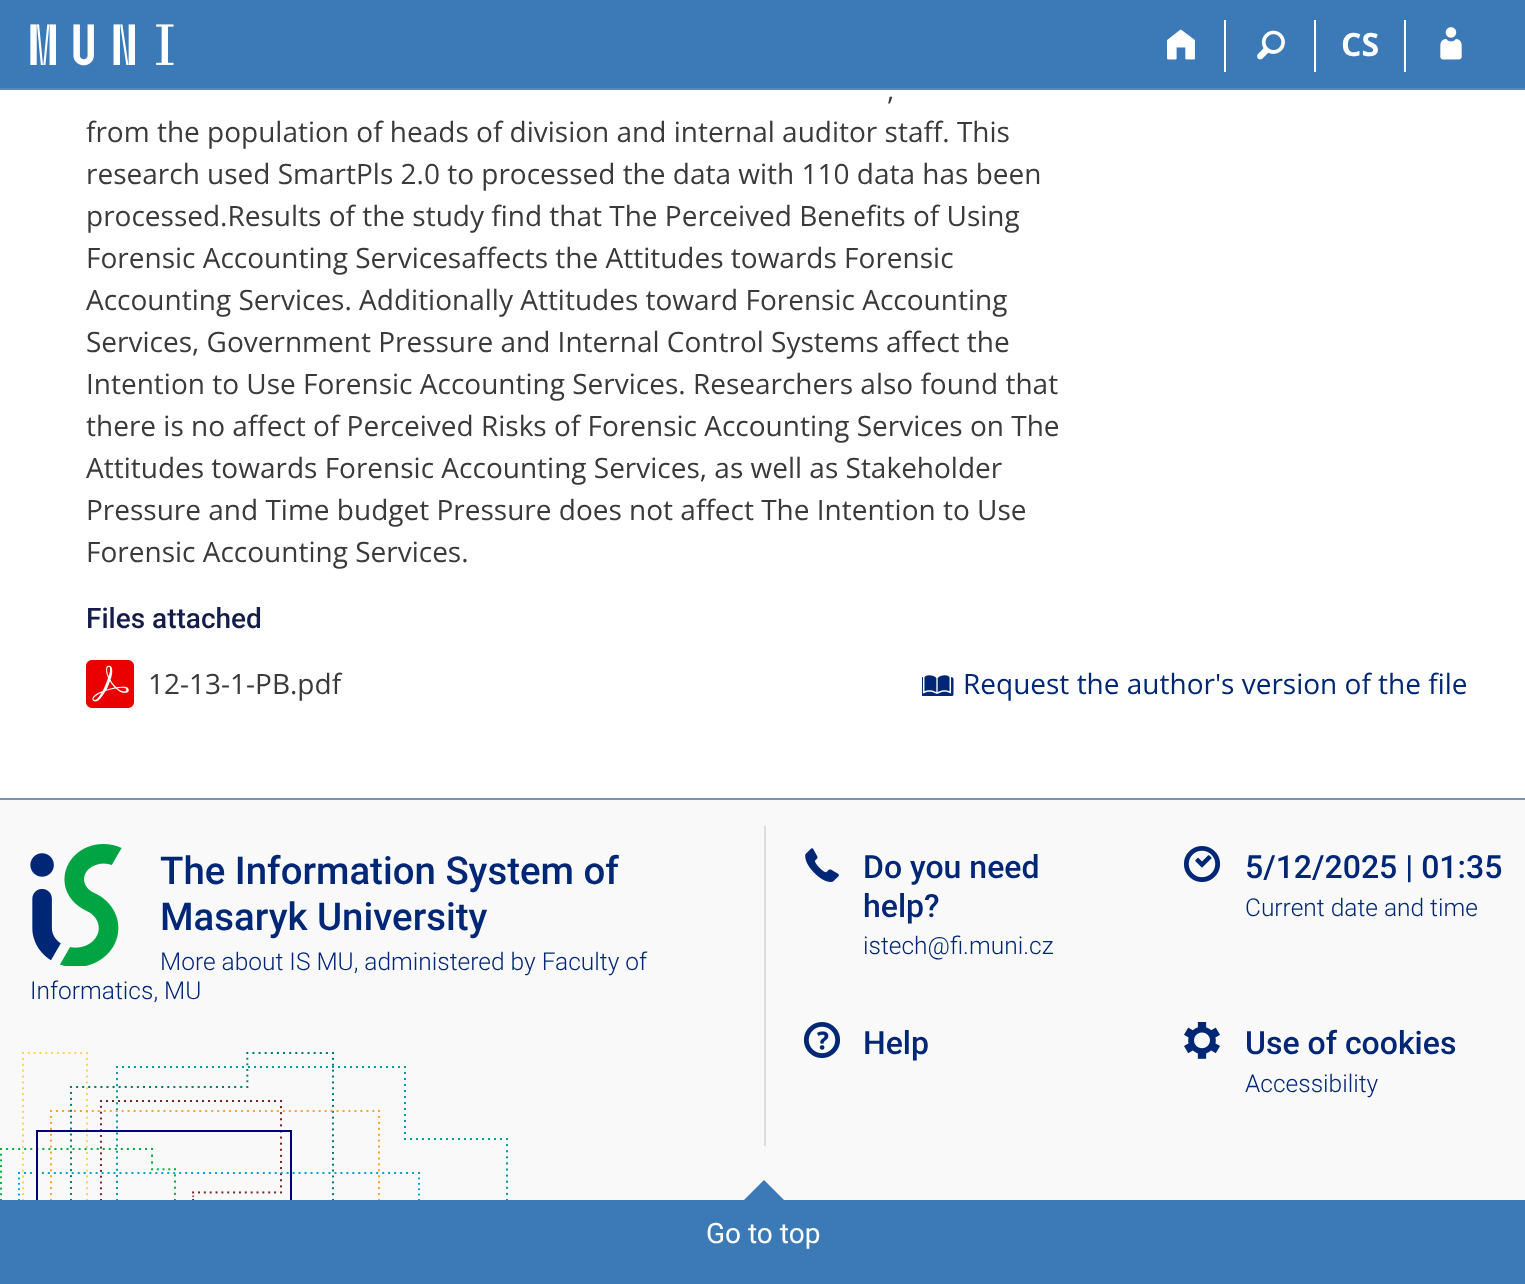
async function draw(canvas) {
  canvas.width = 1525;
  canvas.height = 1284;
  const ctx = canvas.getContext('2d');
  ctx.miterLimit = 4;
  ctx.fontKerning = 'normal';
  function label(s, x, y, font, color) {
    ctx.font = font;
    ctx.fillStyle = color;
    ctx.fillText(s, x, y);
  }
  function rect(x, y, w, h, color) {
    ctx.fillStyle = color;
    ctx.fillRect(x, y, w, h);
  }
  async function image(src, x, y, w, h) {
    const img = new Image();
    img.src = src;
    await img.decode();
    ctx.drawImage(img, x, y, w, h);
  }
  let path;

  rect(0, 0, 1525, 1284, '#fff');
  rect(0, 0, 1525, 88, '#3c7ab7');
  rect(0, 88, 1525, 2, '#5c88b6');
  await image('assets/img1.png', 30, 24, 144, 42);
  rect(1224, 20, 2, 52, '#fff');
  await image('assets/img2.png', 1167, 29, 28, 31);
  rect(1314, 20, 2, 52, '#fff');
  await image('assets/img3.png', 1257, 30, 28, 30);
  rect(1404, 20, 2, 52, '#fff');
  label('CS', 1341, 56, 'bold 32px Open Sans', '#fff');
  await image('assets/img4.png', 1440, 27, 22, 33);
  label(',', 887, 100, '28px Open Sans', '#3a3a3a');
  label('from the population of heads of division and internal auditor staff. This', 86, 142, '28px Open Sans', '#3a3a3a');
  label('research used SmartPls 2.0 to processed the data with 110 data has been', 86, 184, '28px Open Sans', '#3a3a3a');
  label('processed.Results of the study find that The Perceived Benefits of Using', 86, 226, '28px Open Sans', '#3a3a3a');
  label('Forensic Accounting Servicesaffects the Attitudes towards Forensic', 86, 268, '28px Open Sans', '#3a3a3a');
  label('Accounting Services. Additionally Attitudes toward Forensic Accounting', 86, 310, '28px Open Sans', '#3a3a3a');
  label('Services, Government Pressure and Internal Control Systems affect the', 86, 352, '28px Open Sans', '#3a3a3a');
  label('Intention to Use Forensic Accounting Services. Researchers also found that', 86, 394, '28px Open Sans', '#3a3a3a');
  label('there is no affect of Perceived Risks of Forensic Accounting Services on The', 86, 436, '28px Open Sans', '#3a3a3a');
  label('Attitudes towards Forensic Accounting Services, as well as Stakeholder', 86, 478, '28px Open Sans', '#3a3a3a');
  label('Pressure and Time budget Pressure does not affect The Intention to Use', 86, 520, '28px Open Sans', '#3a3a3a');
  label('Forensic Accounting Services.', 86, 562, '28px Open Sans', '#3a3a3a');
  label('Files attached', 86, 628, '500 28px Roboto', '#141c4a');
  await image('assets/img5.png', 86, 660, 48, 48);
  label('12-13-1-PB.pdf', 148, 694, '28px Open Sans', '#3a3a3a');
  await image('assets/img6.png', 922, 675, 32, 21);
  label('Request the author\'s version of the file', 963, 694, '28px Open Sans', '#002776');
  rect(0, 800, 1525, 400, '#f9f9f9');
  rect(0, 798, 1525, 2, '#7d90b8');
  await image('assets/img7.png', 0, 1052, 508, 148);
  await image('assets/img8.png', 30, 844, 92, 122);
  label('The Information System of', 160, 884, '500 38.4px Roboto', '#002776');
  label('Masaryk University', 160, 930, '500 38.4px Roboto', '#002776');
  label('More about IS MU, administered by Faculty of', 160, 970, '300 24.5px Roboto', '#002776');
  label('Informatics, MU', 30, 999, '300 24.5px Roboto', '#002776');
  rect(764, 826, 2, 320, '#ddd');
  await image('assets/img9.png', 805, 848, 34, 34);
  label('Do you need', 863, 878, '500 32px Roboto', '#002776');
  label('help?', 863, 917, '500 32px Roboto', '#002776');
  label('istech@fi.muni.cz', 863, 954, '300 24.5px Roboto', '#002776');
  await image('assets/img10.png', 803, 1022, 38, 36);
  label('Help', 863, 1054, '500 32px Roboto', '#002776');
  await image('assets/img11.png', 1183, 846, 38, 36);
  label('5/12/2025 | 01:35', 1245, 878, '500 32px Roboto', '#002776');
  label('Current date and time', 1245, 916, '300 24.5px Roboto', '#002776');
  await image('assets/img12.png', 1184, 1022, 36, 37);
  label('Use of cookies', 1245, 1054, '500 32px Roboto', '#002776');
  label('Accessibility', 1245, 1092, '300 24.5px Roboto', '#002776');
  rect(0, 1200, 1525, 84, '#3c7ab7');
  path = new Path2D('M786 1202H742L764 1180Z');
  ctx.fill(path);
  label('Go to top', 706, 1243, '28px Roboto', '#fff');
}

draw(document.querySelector('canvas'));
